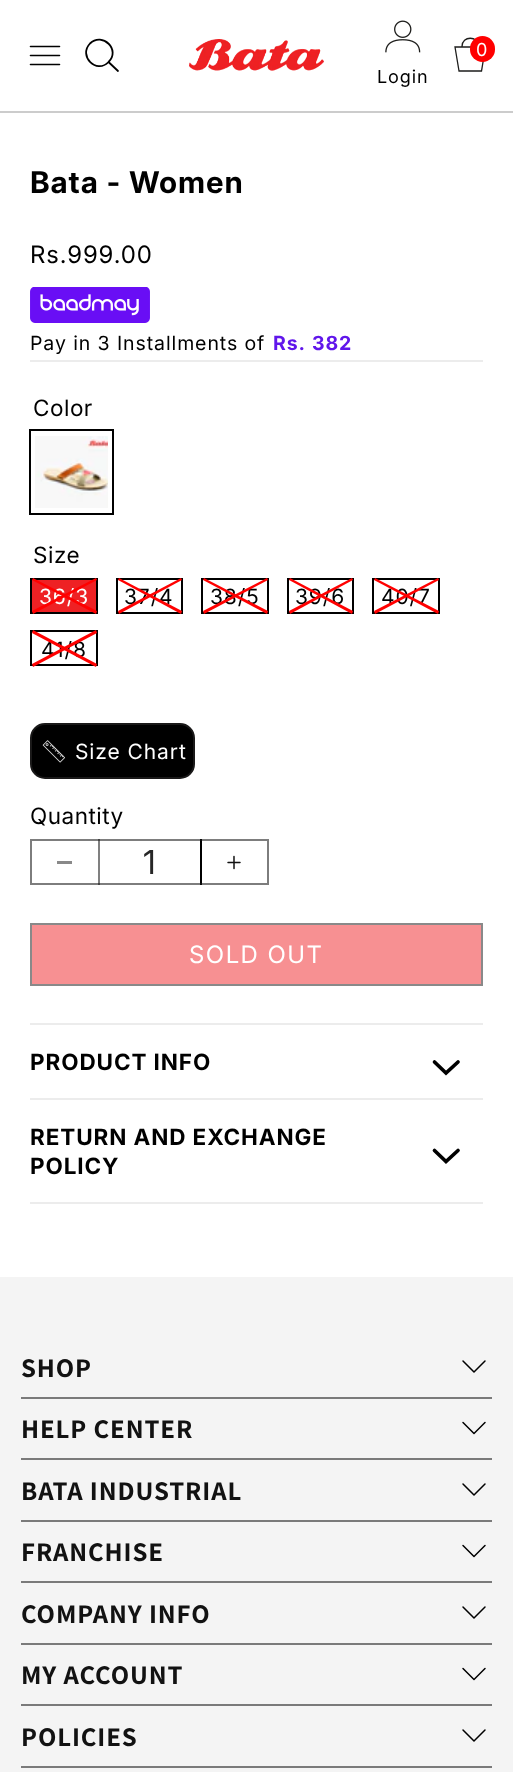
async function draw(canvas) {
  canvas.width = 513;
  canvas.height = 1772;
  const ctx = canvas.getContext('2d');
  ctx.miterLimit = 4;
  ctx.fontKerning = 'normal';
  function label(s, x, y, font, color) {
    ctx.font = font;
    ctx.fillStyle = color;
    ctx.fillText(s, x, y);
  }
  function rect(x, y, w, h, color) {
    ctx.fillStyle = color;
    ctx.fillRect(x, y, w, h);
  }
  function roundedRect(x, y, w, h, r, color) {
    ctx.fillStyle = color;
    ctx.beginPath();
    ctx.roundRect(x, y, w, h, r);
    ctx.fill();
  }
  async function image(src, x, y, w, h) {
    const img = new Image();
    img.src = src;
    await img.decode();
    ctx.drawImage(img, x, y, w, h);
  }
  let path;

  rect(0, 0, 513, 1772, '#fff');
  rect(0, 111, 513, 2, '#ccc');
  path = new Path2D('M30.5 46.5H59.5M30.5 55.5H59.5M30.5 64.5H59.5');
  ctx.strokeStyle = '#000';
  ctx.lineWidth = 1.6;
  ctx.lineCap = 'round';
  ctx.lineJoin = 'round';
  ctx.stroke(path);
  path = new Path2D('M118 71L108.5 62M108.5 62C121 50 102.5 31.5 90 43.5C78 56 96.5 74.5 108.5 62Z');
  ctx.lineWidth = 1.8;
  ctx.stroke(path);
  await image('assets/img1.png', 189, 39, 135, 32);
  path = new Path2D('M459 71L455 47H485.5L481.5 71ZM462 46.5C462 35.5 478.5 35.5 478.5 46.5');
  ctx.strokeStyle = '#1d1d1b';
  ctx.lineWidth = 1.3;
  ctx.lineJoin = 'miter';
  ctx.stroke(path);
  roundedRect(470, 36, 25, 26, 12.5, '#f00');
  ctx.letterSpacing = '0.9px';
  label('0', 476, 56, '18px "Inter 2"', '#fff');
  await image('assets/img2.png', 385, 20, 36, 33);
  label('Login', 377, 83, '18px "Inter 2"', '#000');
  label('Bata - Women', 30, 193, 'bold 30px Inter', '#000');
  rect(30, 360, 453, 2, '#ececec');
  label('Rs.999.00', 30, 263, '24px Inter', '#000');
  await image('assets/img3.png', 30, 287, 120, 36);
  label('Pay in 3 Installments of', 30, 350, '19.5px "Inter 2"', '#000');
  label('Rs.', 273, 350, 'bold 19.5px "Inter 2"', '#6016eb');
  label('382', 312, 350, 'bold 19.5px "Inter 2"', '#6016eb');
  ctx.letterSpacing = '0.5px';
  label('Color', 33, 416, '22.5px "Inter 2"', '#000');
  await image('assets/img4.png', 35, 436, 73, 72);
  ctx.strokeStyle = '#000';
  ctx.lineWidth = 2;
  ctx.strokeRect(30, 430, 83, 84);
  label('Size', 33, 563, '22.5px "Inter 2"', '#000');
  ctx.fillStyle = '#ee2124';
  ctx.beginPath();
  ctx.rect(31, 579, 66, 34);
  ctx.fill();
  ctx.stroke();
  ctx.letterSpacing = '0.9px';
  label('36/3', 39, 604, '21px "Inter 2"', '#fff');
  ctx.fillStyle = '#f00';
  path = new Path2D('M96 578L97 580L33 614L32 611Z');
  ctx.fill(path);
  path = new Path2D('M32 580L33 578L97 611L96 614Z');
  ctx.fill(path);
  ctx.strokeRect(117, 579, 65, 34);
  label('37/4', 124, 604, '21px "Inter 2"', '#000');
  ctx.fillStyle = '#f00';
  path = new Path2D('M181 578L182 580L119 614L118 611Z');
  ctx.fill(path);
  path = new Path2D('M118 580L119 578L182 611L181 614Z');
  ctx.fill(path);
  ctx.strokeRect(202, 579, 66, 34);
  label('38/5', 210, 604, '21px "Inter 2"', '#000');
  ctx.fillStyle = '#f00';
  path = new Path2D('M267 578L268 580L204 614L203 611Z');
  ctx.fill(path);
  path = new Path2D('M203 580L204 578L268 611L267 614Z');
  ctx.fill(path);
  ctx.strokeRect(288, 579, 65, 34);
  label('39/6', 295, 604, '21px "Inter 2"', '#000');
  ctx.fillStyle = '#f00';
  path = new Path2D('M352 578L353 580L290 614L289 611Z');
  ctx.fill(path);
  path = new Path2D('M289 580L290 578L353 611L352 614Z');
  ctx.fill(path);
  ctx.strokeRect(373, 579, 66, 34);
  label('40/7', 381, 604, '21px "Inter 2"', '#000');
  ctx.fillStyle = '#f00';
  path = new Path2D('M438 578L439 580L375 614L374 611Z');
  ctx.fill(path);
  path = new Path2D('M374 580L375 578L439 611L438 614Z');
  ctx.fill(path);
  ctx.strokeRect(31, 631, 66, 34);
  label('41/8', 41, 657, '21px "Inter 2"', '#000');
  ctx.fillStyle = '#f00';
  path = new Path2D('M96 630L97 633L33 667L32 664Z');
  ctx.fill(path);
  path = new Path2D('M32 633L33 630L97 664L96 667Z');
  ctx.fill(path);
  ctx.fillStyle = '#000';
  ctx.beginPath();
  ctx.roundRect(31, 724, 163, 54, 14);
  ctx.fill();
  ctx.strokeStyle = '#1a1919';
  ctx.stroke();
  await image('assets/img5.png', 42, 740, 23, 23);
  label('Size Chart', 75, 759, '21px "Inter 2"', '#fff');
  ctx.letterSpacing = '0.5px';
  label('Quantity', 30, 824, '22.5px "Inter 2"', '#000');
  rect(98, 839, 2, 46, '#808080');
  rect(57, 861, 15, 3, '#898989');
  rect(200, 839, 2, 46, '#000');
  await image('assets/img6.png', 227, 855, 14, 15);
  ctx.strokeStyle = '#1212128c';
  ctx.strokeRect(31, 840, 237, 44);
  ctx.letterSpacing = '0px';
  label('1', 143, 874, '33px "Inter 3"', '#262626');
  rect(32, 925, 449, 59, '#f79092');
  ctx.strokeStyle = '#898989';
  ctx.strokeRect(31, 924, 451, 61);
  ctx.letterSpacing = '1.5px';
  label('SOLD OUT', 189, 963, '24px Inter', '#fff');
  rect(30, 1023, 453, 2, '#ececec');
  rect(30, 1098, 453, 2, '#ececec');
  ctx.letterSpacing = '0.9px';
  label('PRODUCT INFO', 30, 1070, 'bold 22.5px "Inter 2"', '#000');
  path = new Path2D('M458 1062L446 1073L434.5 1062');
  ctx.strokeStyle = '#000';
  ctx.lineWidth = 3.7;
  ctx.stroke(path);
  rect(30, 1202, 453, 2, '#ececec');
  label('RETURN AND EXCHANGE', 30, 1145, 'bold 22.5px "Inter 2"', '#000');
  label('POLICY', 30, 1174, 'bold 22.5px "Inter 2"', '#000');
  path = new Path2D('M458 1150.5L446 1161.5L434.5 1150.5');
  ctx.stroke(path);
  rect(0, 1277, 513, 495, '#f4f4f4');
  rect(21, 1397, 471, 2, '#7a7a7a');
  label('SHOP', 21, 1377, 'bold 27px Assistant', '#121212');
  path = new Path2D('M485 1361L474 1372L463 1361');
  ctx.lineWidth = 1.5;
  ctx.lineJoin = 'round';
  ctx.stroke(path);
  rect(21, 1458, 471, 2, '#7a7a7a');
  label('HELP CENTER', 21, 1438, 'bold 27px Assistant', '#121212');
  path = new Path2D('M485 1422.5L474 1433.5L463 1422.5');
  ctx.stroke(path);
  rect(21, 1520, 471, 2, '#7a7a7a');
  label('BATA INDUSTRIAL', 21, 1500, 'bold 27px Assistant', '#121212');
  path = new Path2D('M485 1484L474 1495L463 1484');
  ctx.stroke(path);
  rect(21, 1581, 471, 2, '#7a7a7a');
  label('FRANCHISE', 21, 1561, 'bold 27px Assistant', '#121212');
  path = new Path2D('M485 1545.5L474 1556.5L463 1545.5');
  ctx.stroke(path);
  rect(21, 1643, 471, 2, '#7a7a7a');
  label('COMPANY INFO', 21, 1623, 'bold 27px Assistant', '#121212');
  path = new Path2D('M485 1607L474 1618L463 1607');
  ctx.stroke(path);
  rect(21, 1704, 471, 2, '#7a7a7a');
  label('MY ACCOUNT', 21, 1684, 'bold 27px Assistant', '#121212');
  path = new Path2D('M485 1668.5L474 1679.5L463 1668.5');
  ctx.stroke(path);
  rect(21, 1766, 471, 2, '#7a7a7a');
  label('POLICIES', 21, 1746, 'bold 27px Assistant', '#121212');
  path = new Path2D('M485 1730L474 1741L463 1730');
  ctx.stroke(path);
}

draw(document.querySelector('canvas'));
